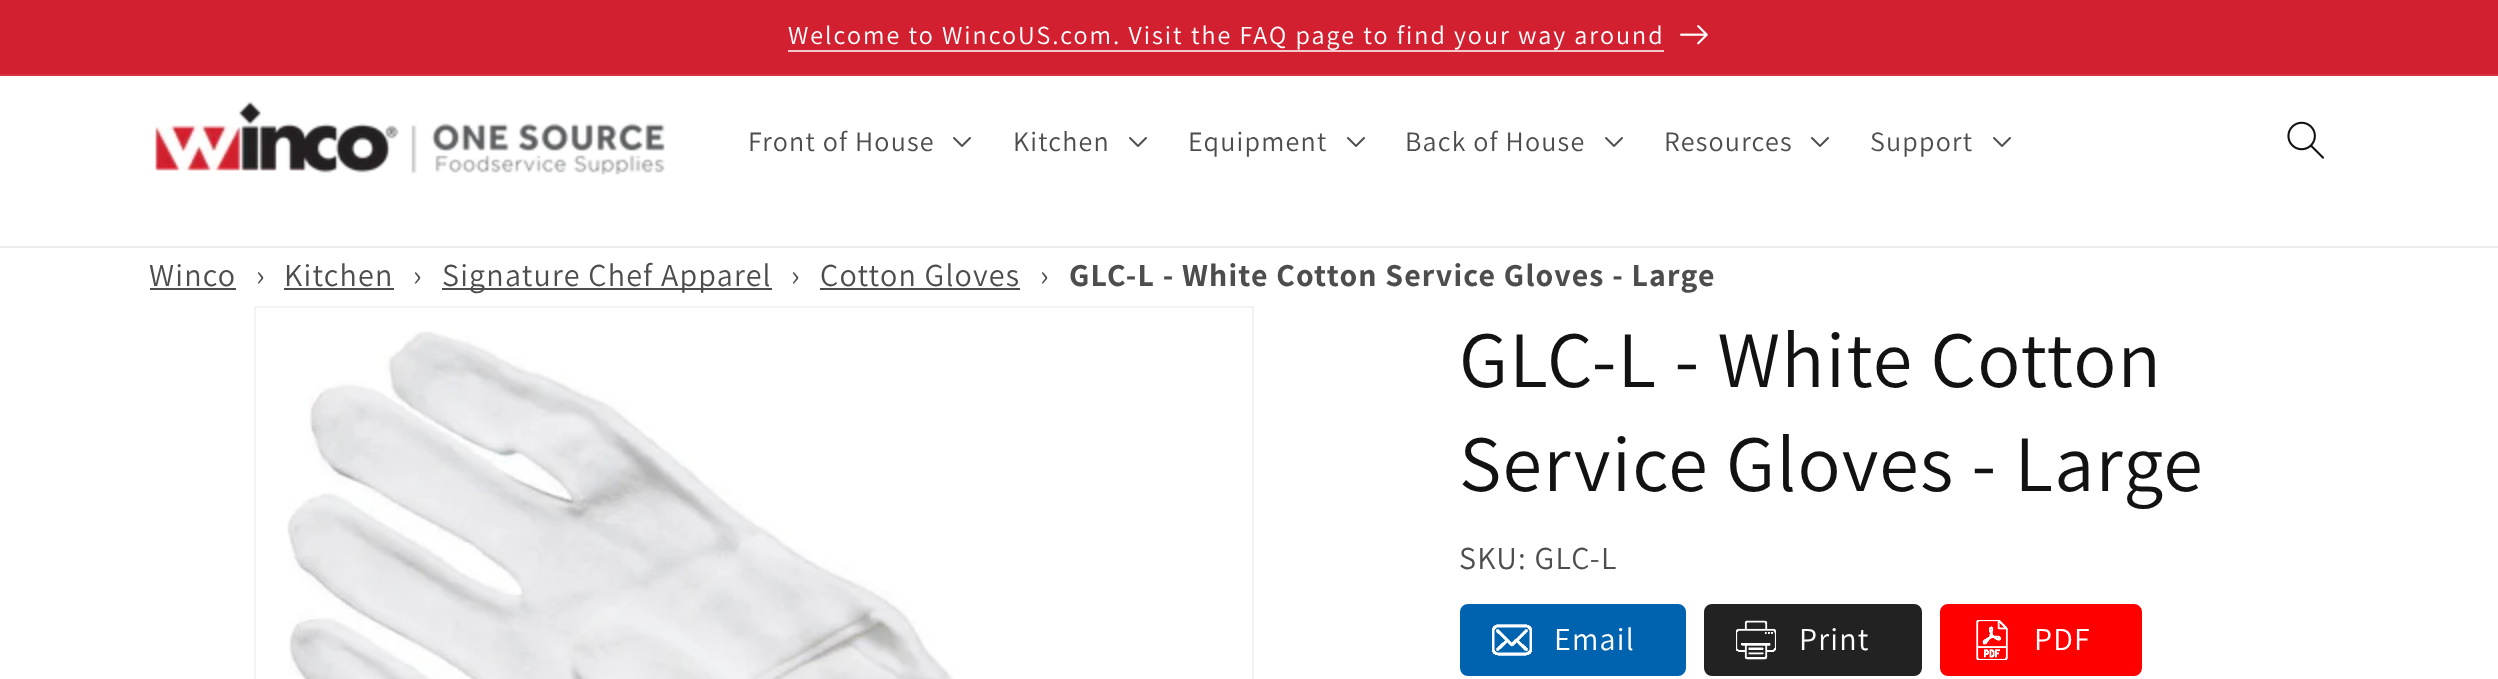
async function draw(canvas) {
  canvas.width = 2498;
  canvas.height = 679;
  const ctx = canvas.getContext('2d');
  ctx.miterLimit = 4;
  ctx.fontKerning = 'normal';
  function label(s, x, y, font, color) {
    ctx.font = font;
    ctx.fillStyle = color;
    ctx.fillText(s, x, y);
  }
  function rect(x, y, w, h, color) {
    ctx.fillStyle = color;
    ctx.fillRect(x, y, w, h);
  }
  async function image(src, x, y, w, h) {
    const img = new Image();
    img.src = src;
    await img.decode();
    ctx.drawImage(img, x, y, w, h);
  }

  rect(0, 0, 2498, 679, '#fff');
  rect(0, 0, 2498, 74, '#d22030');
  rect(0, 74, 2498, 2, '#d63241');
  ctx.letterSpacing = '2px';
  label('Welcome to WincoUS.com. Visit the FAQ page to find your way around', 788, 44, '26px Assistant', '#fff');
  rect(788, 50, 876, 2, '#f4c7cb');
  await image('assets/img1.png', 1680, 25, 28, 20);
  rect(0, 246, 2498, 2, '#ececec');
  await image('assets/img2.png', 155, 101, 510, 75);
  ctx.letterSpacing = '1.2px';
  label('Front of House', 748, 151, '28px Assistant', '#4d4d4d');
  await image('assets/img3.png', 953, 137, 18, 10);
  label('Kitchen', 1013, 151, '28px Assistant', '#4d4d4d');
  await image('assets/img3.png', 1129, 137, 18, 10);
  label('Equipment', 1188, 151, '28px Assistant', '#4d4d4d');
  await image('assets/img3.png', 1347, 137, 18, 10);
  label('Back of House', 1405, 151, '28px Assistant', '#4d4d4d');
  await image('assets/img3.png', 1605, 137, 18, 10);
  label('Resources', 1664, 151, '28px Assistant', '#4d4d4d');
  await image('assets/img3.png', 1811, 137, 18, 10);
  label('Support', 1870, 151, '28px Assistant', '#4d4d4d');
  await image('assets/img3.png', 1993, 137, 18, 10);
  await image('assets/img4.png', 2287, 121, 37, 38);
  label('Winco', 149, 286, '32px Assistant', '#4d4d4d');
  rect(150, 288, 86, 2, '#4d4d4d');
  label('›', 256, 286, '32px Assistant', '#4d4d4d');
  label('Kitchen', 284, 286, '32px Assistant', '#4d4d4d');
  rect(284, 288, 110, 2, '#4d4d4d');
  label('›', 413, 286, '32px Assistant', '#4d4d4d');
  rect(442, 288, 330, 2, '#4d4d4d');
  label('Signature Chef Apparel', 442, 286, '32px Assistant', '#4d4d4d');
  label('›', 791, 286, '32px Assistant', '#4d4d4d');
  label('Cotton Gloves', 820, 286, '32px Assistant', '#4d4d4d');
  rect(820, 288, 200, 2, '#4d4d4d');
  label('›', 1040, 286, '32px Assistant', '#4d4d4d');
  label('GLC-L - White Cotton Service Gloves - Large', 1069, 286, 'bold 32px Assistant', '#4d4d4d');
  ctx.strokeStyle = '#f3f3f3';
  ctx.lineWidth = 2;
  ctx.strokeRect(255, 307, 998, 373);
  await image('assets/img5.png', 287, 331, 667, 348);
  label('GLC-L - White Cotton', 1459, 387, '80px Assistant', '#121212');
  label('Service Gloves - Large', 1459, 491, '80px Assistant', '#121212');
  label('SKU: GLC-L', 1459, 569, '32px Assistant', '#4d4d4d');
  ctx.fillStyle = '#0063b0';
  ctx.beginPath();
  ctx.roundRect(1461, 605, 224, 70, 7);
  ctx.fill();
  ctx.strokeStyle = '#0063b0';
  ctx.stroke();
  await image('assets/img6.png', 1492, 624, 40, 32);
  label('Email', 1554, 650, '32px Assistant', '#fff');
  ctx.fillStyle = '#222';
  ctx.beginPath();
  ctx.roundRect(1705, 605, 216, 70, 7);
  ctx.fill();
  ctx.strokeStyle = '#222';
  ctx.stroke();
  await image('assets/img7.png', 1736, 620, 40, 40);
  label('Print', 1799, 650, '32px Assistant', '#fff');
  ctx.fillStyle = '#f00';
  ctx.beginPath();
  ctx.roundRect(1941, 605, 200, 70, 7);
  ctx.fill();
  ctx.strokeStyle = '#f00';
  ctx.stroke();
  await image('assets/img8.png', 1976, 620, 32, 40);
  label('PDF', 2034, 650, '32px Assistant', '#fff');
}

draw(document.querySelector('canvas'));
